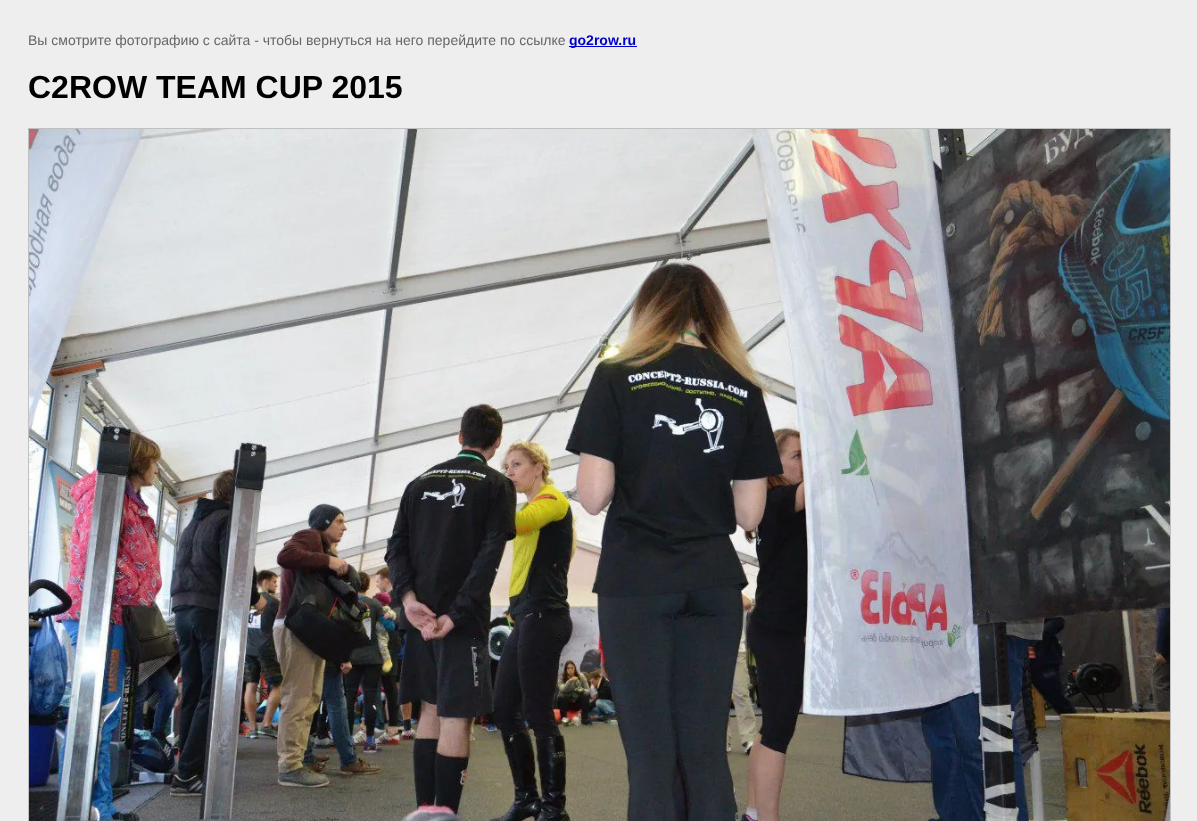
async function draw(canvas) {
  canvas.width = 1197;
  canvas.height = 821;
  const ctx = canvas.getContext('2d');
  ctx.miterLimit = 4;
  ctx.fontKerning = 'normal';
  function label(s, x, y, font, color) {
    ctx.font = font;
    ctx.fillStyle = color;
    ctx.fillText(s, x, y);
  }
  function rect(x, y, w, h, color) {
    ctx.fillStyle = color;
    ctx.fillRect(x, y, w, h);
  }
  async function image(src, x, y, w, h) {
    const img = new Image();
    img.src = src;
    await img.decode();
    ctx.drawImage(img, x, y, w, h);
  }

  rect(0, 0, 1197, 821, '#eee');
  label('Вы смотрите фотографию с сайта - чтобы вернуться на него перейдите по ссылке', 28, 45, '14px Liberation Sans', '#666');
  rect(569, 46, 68, 1, '#00c');
  label('go2row.ru', 569, 45, 'bold 14px Liberation Sans', '#00c');
  label('C2ROW TEAM CUP 2015', 28, 98, 'bold 32px Liberation Sans', '#000');
  ctx.strokeStyle = '#c0c0c0';
  ctx.strokeRect(28.5, 128.5, 1142, 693);
  await image('assets/img1.png', 29, 129, 1141, 692);
}

draw(document.querySelector('canvas'));
